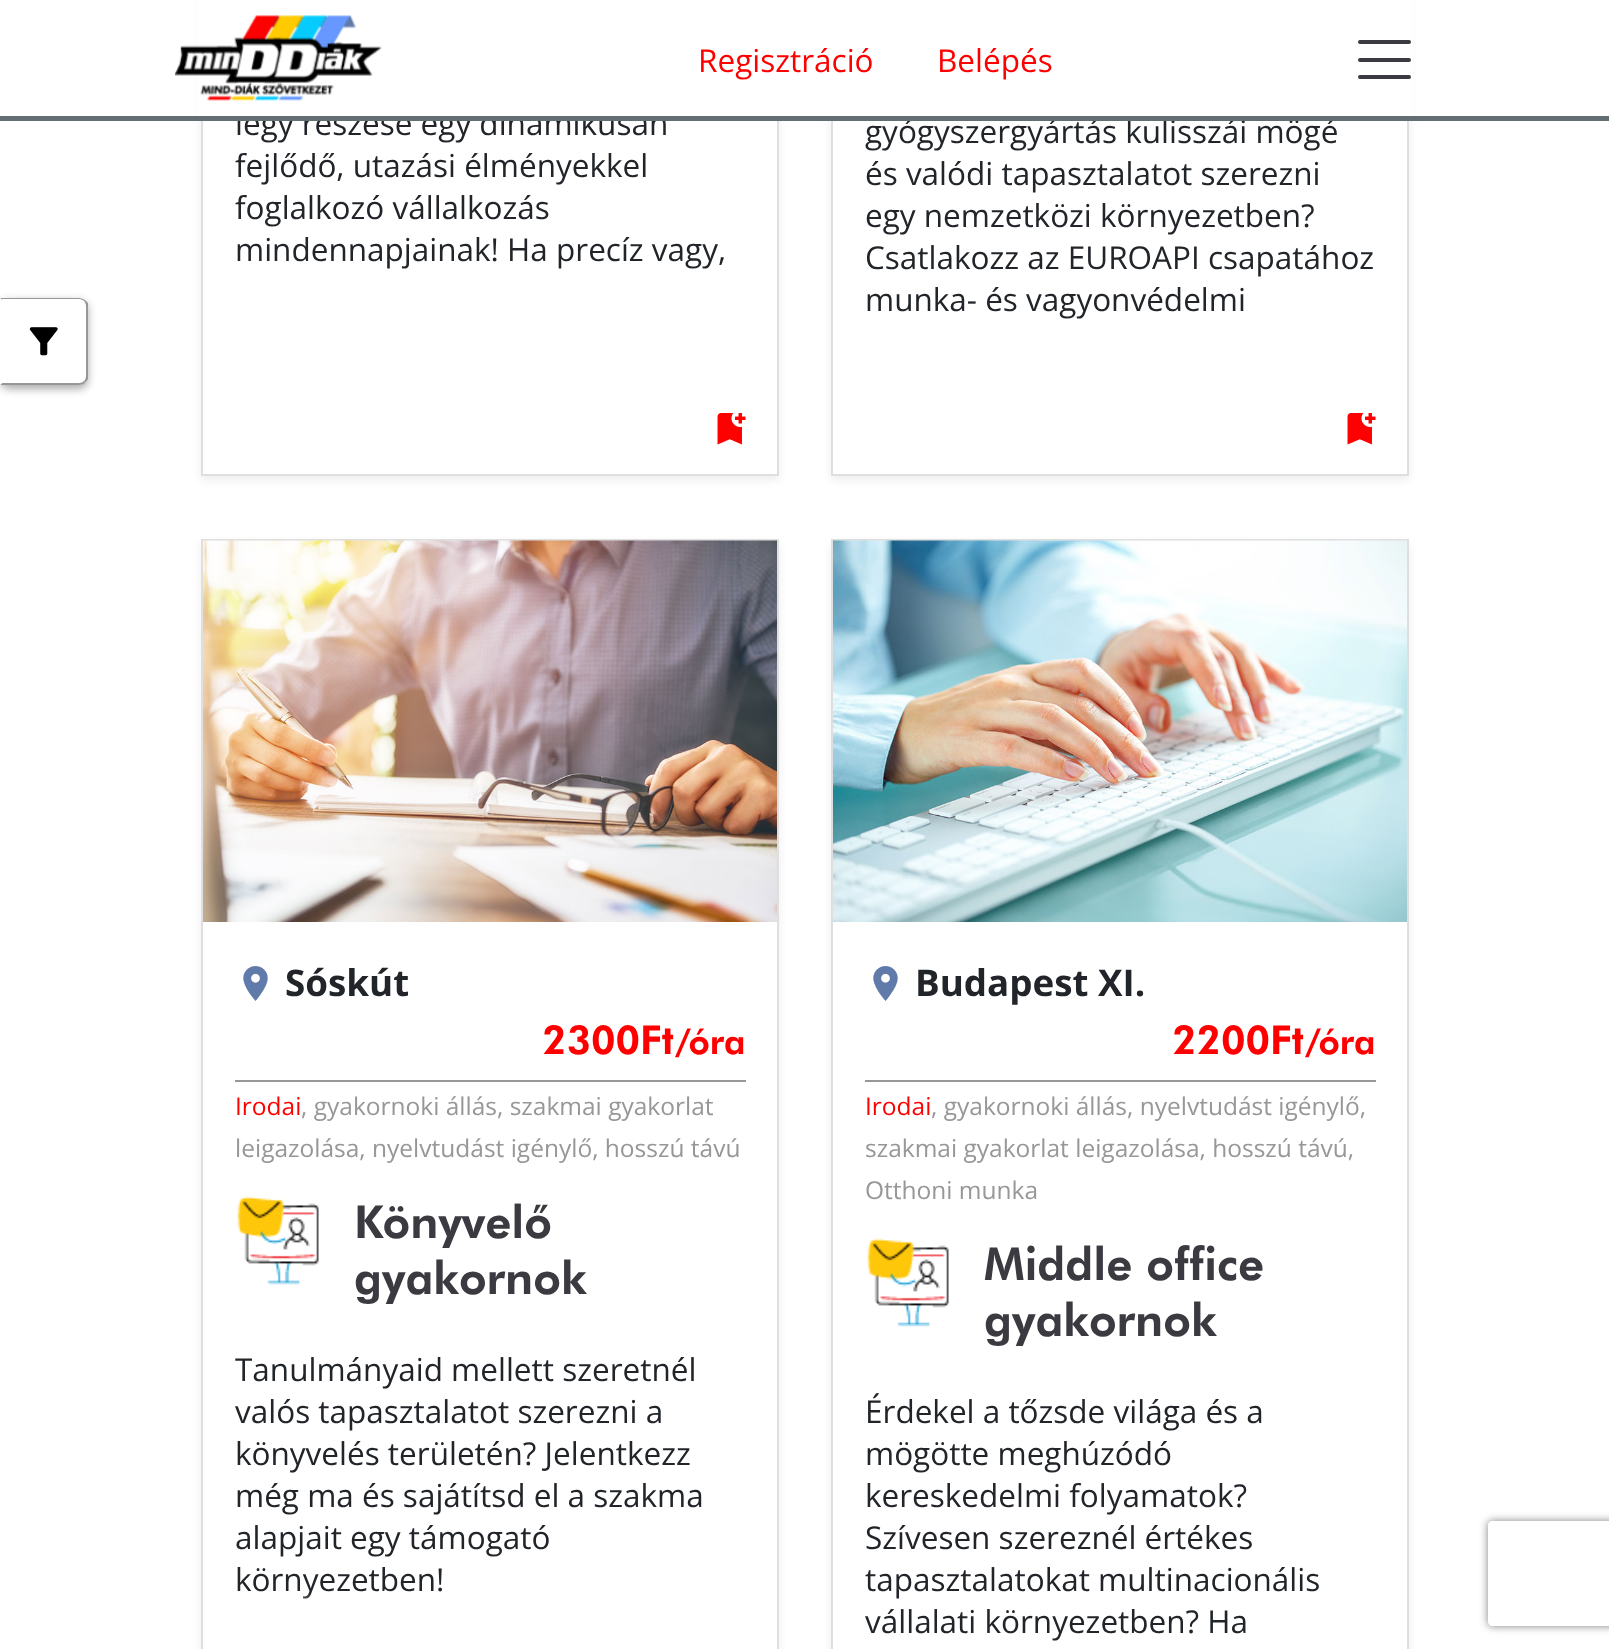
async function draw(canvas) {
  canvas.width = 1609;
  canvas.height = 1649;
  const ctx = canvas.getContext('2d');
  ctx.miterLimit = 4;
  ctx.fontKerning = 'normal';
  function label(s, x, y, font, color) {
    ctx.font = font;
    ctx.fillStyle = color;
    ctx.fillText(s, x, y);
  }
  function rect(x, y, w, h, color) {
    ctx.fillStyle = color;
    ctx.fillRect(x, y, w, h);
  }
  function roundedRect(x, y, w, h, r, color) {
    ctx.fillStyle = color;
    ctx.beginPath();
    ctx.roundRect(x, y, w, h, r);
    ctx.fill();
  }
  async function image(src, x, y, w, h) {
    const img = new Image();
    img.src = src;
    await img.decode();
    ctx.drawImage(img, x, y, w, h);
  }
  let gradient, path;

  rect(0, 0, 1609, 1649, '#fff');
  ctx.fillStyle = '#00000012';
  ctx.filter = 'blur(4px)';
  ctx.beginPath();
  ctx.rect(201, -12, 578, 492);
  ctx.fill();
  ctx.filter = 'none';
  rect(203, 121, 574, 353, '#fff');
  ctx.strokeStyle = '#dfdfdf';
  ctx.lineWidth = 2;
  ctx.strokeRect(202, -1, 576, 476);
  label('légy részese egy dinamikusan', 235, 135, '31.5px Open Sans', '#212529');
  ctx.fillStyle = '#00000012';
  ctx.filter = 'blur(4px)';
  ctx.beginPath();
  ctx.rect(831, -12, 578, 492);
  ctx.fill();
  ctx.filter = 'none';
  rect(833, 121, 574, 353, '#fff');
  ctx.strokeRect(832, -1, 576, 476);
  rect(197, 0, 1216, 116, '#fff');
  label('gyógyszergyártás kulisszái mögé', 865, 143, '31.5px Open Sans', '#212529');
  rect(0, 116, 1609, 5, '#636e72');
  await image('assets/img1.png', 175, 15, 207, 86);
  label('Regisztráció', 698, 72, '31.5px Open Sans', '#f00');
  label('Belépés', 937, 72, '31.5px Open Sans', '#f00');
  roundedRect(1358, 40, 53, 4, 2, '#3b3a40');
  roundedRect(1358, 58, 53, 4, 2, '#3b3a40');
  roundedRect(1358, 75, 53, 4, 2, '#3b3a40');
  ctx.fillStyle = '#00000054';
  ctx.filter = 'blur(4px)';
  ctx.beginPath();
  ctx.roundRect(0, 301, 88, 88, 9);
  ctx.fill();
  ctx.filter = 'none';
  ctx.fillStyle = '#fff';
  ctx.beginPath();
  ctx.roundRect(0, 298, 88, 87, [0, 9, 9, 0]);
  ctx.fill();
  ctx.fillStyle = '#979797';
  path = new Path2D('M2 299H79C81 299 83 300 84 301L85 300C83 299 81 298 79 298H0L2 300Z');
  ctx.fill(path);
  path = new Path2D('M85 300L88 303V379L85 383L84 381C85 380 86 378 86 376V306C86 304 85 302 84 301Z');
  ctx.fill(path);
  path = new Path2D('M79 385C81 385 84 384 85 383L84 381C83 382 81 383 79 383H2L0 385Z');
  ctx.fill(path);
  ctx.fillStyle = '#fff';
  path = new Path2D('M0 385L2 383V300L0 298Z');
  ctx.fill(path);
  await image('assets/img2.png', 29, 327, 29, 29);
  label('fejlődő, utazási élményekkel', 235, 177, '31.5px Open Sans', '#212529');
  label('foglalkozó vállalkozás', 235, 219, '31.5px Open Sans', '#212529');
  label('mindennapjainak! Ha precíz vagy,', 235, 261, '31.5px Open Sans', '#212529');
  await image('assets/img3.png', 717, 413, 29, 32);
  label('és valódi tapasztalatot szerezni', 865, 185, '31.5px Open Sans', '#212529');
  label('egy nemzetközi környezetben?', 865, 227, '31.5px Open Sans', '#212529');
  label('Csatlakozz az EUROAPI csapatához', 865, 269, '31.5px Open Sans', '#212529');
  label('munka- és vagyonvédelmi', 865, 311, '31.5px Open Sans', '#212529');
  await image('assets/img3.png', 1347, 413, 29, 32);
  ctx.fillStyle = '#00000012';
  ctx.filter = 'blur(4px)';
  ctx.beginPath();
  ctx.rect(201, 543, 578, 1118);
  ctx.fill();
  ctx.filter = 'none';
  rect(203, 922, 574, 727, '#fff');
  ctx.strokeRect(202, 540, 576, 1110);
  await image('assets/img4.png', 203, 540, 574, 382);
  rect(235, 1080, 511, 2, '#979797');
  await image('assets/img5.png', 243, 966, 25, 35);
  label('Sóskút', 285, 996, 'bold 36.75px Open Sans', '#212529');
  label('2300Ft', 542, 1054, 'bold 40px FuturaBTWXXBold', '#f00');
  label('/óra', 675, 1054, 'bold 35px FuturaBTWXXBold', '#f00');
  label('Irodai', 235, 1115, '24.5px Open Sans', '#f00');
  label(', gyakornoki állás, szakmai gyakorlat', 301, 1115, '24.5px Open Sans', '#979797');
  label('leigazolása, nyelvtudást igénylő, hosszú távú', 235, 1157, '24.5px Open Sans', '#979797');
  await image('assets/img6.png', 237, 1196, 82, 89);
  label('Könyvelő', 354, 1238, 'bold 45.5px FuturaBTWXXBold', '#3b3a40');
  label('gyakornok', 354, 1294, 'bold 45.5px FuturaBTWXXBold', '#3b3a40');
  ctx.save();
  ctx.beginPath();
  ctx.rect(235, 1348, 511, 273);
  ctx.clip();
  label('Tanulmányaid mellett szeretnél', 235, 1381, '31.5px Open Sans', '#212529');
  ctx.restore();
  label('valós tapasztalatot szerezni a', 235, 1423, '31.5px Open Sans', '#212529');
  label('könyvelés területén? Jelentkezz', 235, 1465, '31.5px Open Sans', '#212529');
  label('még ma és sajátítsd el a szakma', 235, 1507, '31.5px Open Sans', '#212529');
  label('alapjait egy támogató', 235, 1549, '31.5px Open Sans', '#212529');
  label('környezetben!', 235, 1591, '31.5px Open Sans', '#212529');
  gradient = ctx.createLinearGradient(490, 1593, 490, 1621);
  gradient.addColorStop(0, '#ffffff00');
  gradient.addColorStop(1, '#fff');
  ctx.fillStyle = gradient;
  ctx.fillRect(302, 1594, 8, 5);
  ctx.fillStyle = '#00000012';
  ctx.filter = 'blur(4px)';
  ctx.beginPath();
  ctx.rect(831, 543, 578, 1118);
  ctx.fill();
  ctx.filter = 'none';
  rect(833, 922, 574, 727, '#fff');
  ctx.strokeRect(832, 540, 576, 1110);
  await image('assets/img7.png', 833, 540, 574, 382);
  rect(865, 1080, 511, 2, '#979797');
  await image('assets/img5.png', 873, 966, 25, 35);
  label('Budapest XI.', 915, 996, 'bold 36.75px Open Sans', '#212529');
  label('2200Ft', 1172, 1054, 'bold 40px FuturaBTWXXBold', '#f00');
  label('/óra', 1305, 1054, 'bold 35px FuturaBTWXXBold', '#f00');
  label('Irodai', 865, 1115, '24.5px Open Sans', '#f00');
  label(', gyakornoki állás, nyelvtudást igénylő,', 931, 1115, '24.5px Open Sans', '#979797');
  label('szakmai gyakorlat leigazolása, hosszú távú,', 865, 1157, '24.5px Open Sans', '#979797');
  label('Otthoni munka', 865, 1199, '24.5px Open Sans', '#979797');
  await image('assets/img6.png', 867, 1238, 82, 89);
  label('Middle office', 984, 1280, 'bold 45.5px FuturaBTWXXBold', '#3b3a40');
  label('gyakornok', 984, 1336, 'bold 45.5px FuturaBTWXXBold', '#3b3a40');
  label('Érdekel a tőzsde világa és a', 865, 1423, '31.5px Open Sans', '#212529');
  label('mögötte meghúzódó', 865, 1465, '31.5px Open Sans', '#212529');
  label('kereskedelmi folyamatok?', 865, 1507, '31.5px Open Sans', '#212529');
  label('Szívesen szereznél értékes', 865, 1549, '31.5px Open Sans', '#212529');
  label('tapasztalatokat multinacionális', 865, 1591, '31.5px Open Sans', '#212529');
  label('vállalati környezetben? Ha', 865, 1633, '31.5px Open Sans', '#212529');
  ctx.save();
  path = new Path2D('M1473 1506H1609V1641H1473ZM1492 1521H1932C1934 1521 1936 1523 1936 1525V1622C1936 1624 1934 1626 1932 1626H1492C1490 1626 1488 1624 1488 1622V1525C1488 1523 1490 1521 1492 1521Z');
  ctx.clip(path, 'evenodd');
  ctx.fillStyle = '#808080';
  ctx.filter = 'blur(4.5px)';
  ctx.beginPath();
  ctx.roundRect(1488, 1521, 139, 105, 4);
  ctx.fill();
  ctx.filter = 'none';
  ctx.restore();
}

draw(document.querySelector('canvas'));
